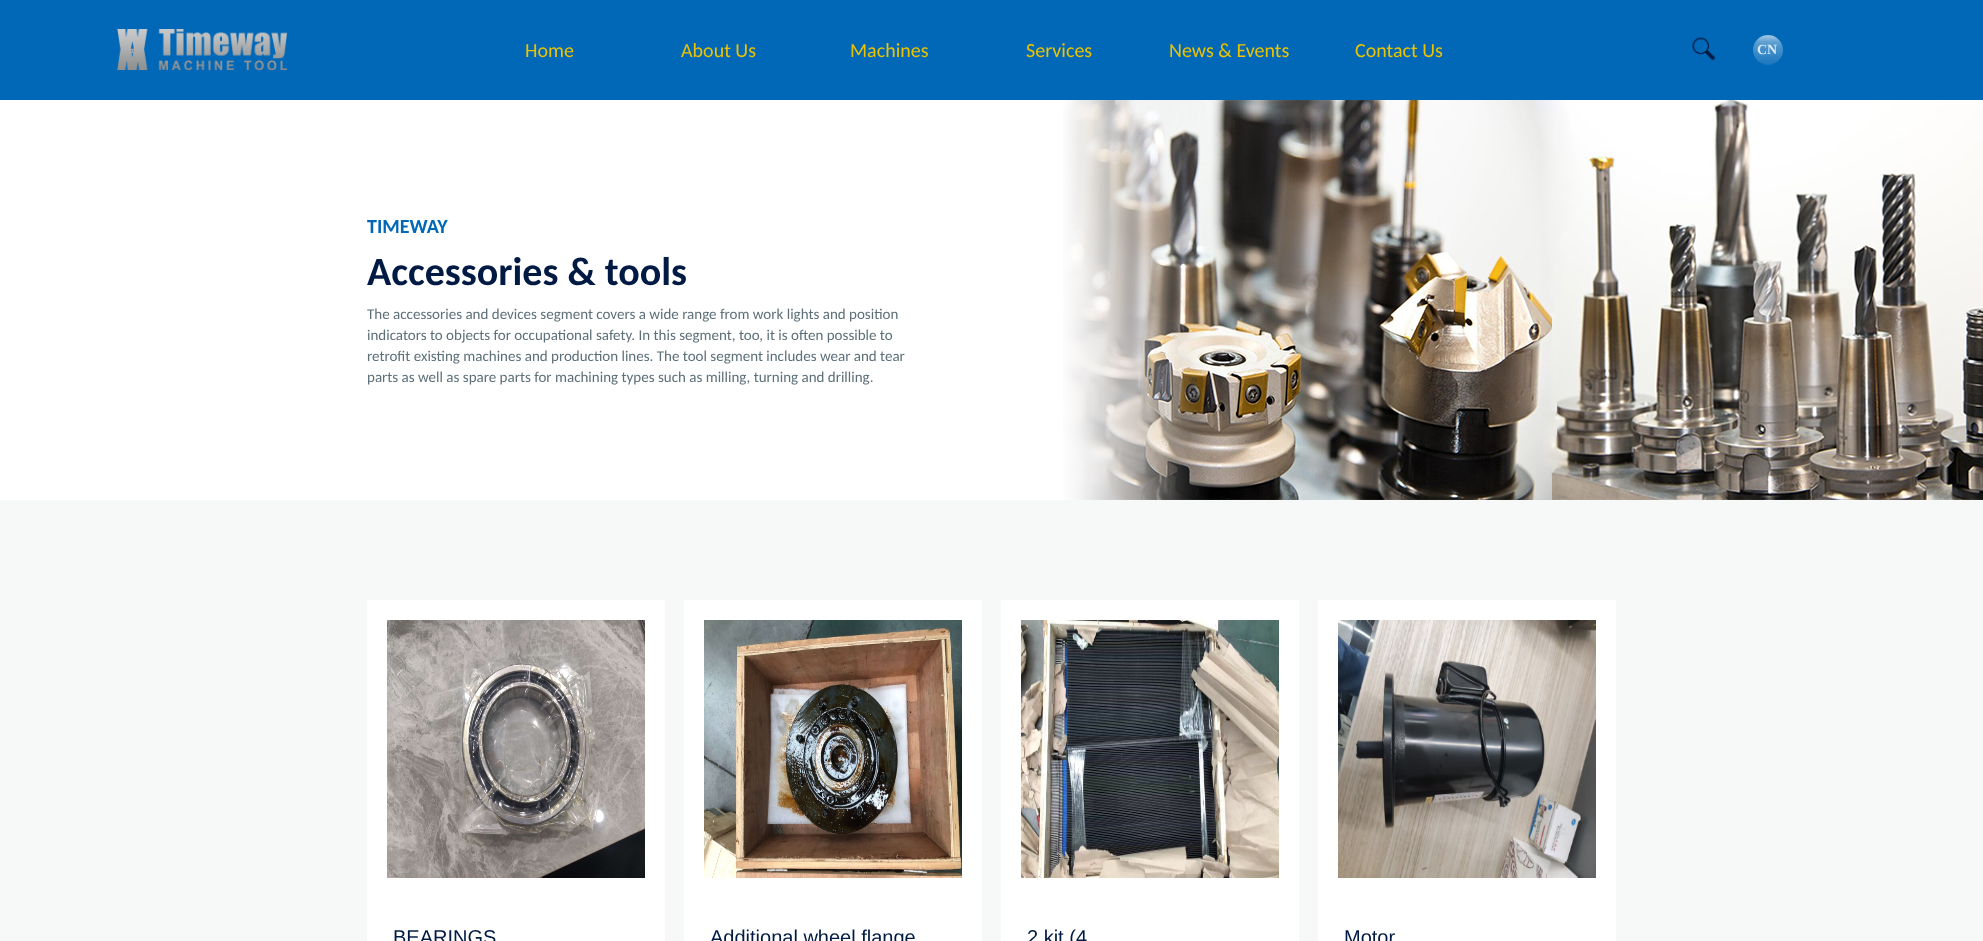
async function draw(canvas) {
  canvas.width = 1983;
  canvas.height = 941;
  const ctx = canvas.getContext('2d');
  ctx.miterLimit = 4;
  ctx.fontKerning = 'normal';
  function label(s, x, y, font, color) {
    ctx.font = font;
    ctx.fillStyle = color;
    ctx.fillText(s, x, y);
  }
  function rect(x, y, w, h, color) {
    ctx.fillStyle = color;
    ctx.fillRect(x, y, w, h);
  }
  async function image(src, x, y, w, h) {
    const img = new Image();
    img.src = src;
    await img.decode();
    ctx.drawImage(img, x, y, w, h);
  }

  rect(0, 0, 1983, 941, '#fff');
  rect(0, 0, 1983, 100, '#0168b7');
  await image('assets/img1.png', 117, 29, 170, 41);
  label('Home', 525, 57, '20px Carlito', '#edc300');
  label('About Us', 681, 57, '20px Carlito', '#edc300');
  label('Machines', 850, 57, '20px Carlito', '#edc300');
  label('Services', 1026, 57, '20px Carlito', '#edc300');
  label('News & Events', 1169, 57, '20px Carlito', '#edc300');
  label('Contact Us', 1355, 57, '20px Carlito', '#edc300');
  await image('assets/img2.png', 1692, 37, 24, 24);
  await image('assets/img3.png', 1753, 35, 30, 30);
  label('CN', 1757, 54, 'bold 14px Liberation Serif', '#dae9f5');
  label('TIMEWAY', 367, 233, 'bold 20px Carlito', '#0068b7');
  label('Accessories & tools', 367, 285, 'bold 40px Carlito', '#001a43');
  label('The accessories and devices segment covers a wide range from work lights and position', 367, 319, '15px Carlito', '#5d7079');
  label('indicators to objects for occupational safety. In this segment, too, it is often possible to', 367, 340, '15px Carlito', '#5d7079');
  label('retrofit existing machines and production lines. The tool segment includes wear and tear', 367, 361, '15px Carlito', '#5d7079');
  label('parts as well as spare parts for machining types such as milling, turning and drilling.', 367, 382, '15px Carlito', '#5d7079');
  await image('assets/img4.png', 1063, 100, 920, 400);
  rect(0, 500, 1983, 441, '#f7f8f8');
  rect(367, 600, 298, 341, '#fff');
  await image('assets/img5.png', 387, 620, 258, 258);
  label('BEARINGS', 393, 944, '20px Liberation Sans', '#001a43');
  rect(684, 600, 298, 341, '#fff');
  await image('assets/img6.png', 704, 620, 258, 258);
  label('Additional wheel flange', 710, 944, '20px Liberation Sans', '#001a43');
  rect(1001, 600, 298, 341, '#fff');
  await image('assets/img7.png', 1021, 620, 258, 258);
  label('2 kit (4', 1027, 944, '20px Liberation Sans', '#001a43');
  rect(1318, 600, 298, 341, '#fff');
  await image('assets/img8.png', 1338, 620, 258, 258);
  label('Motor', 1344, 944, '20px Liberation Sans', '#001a43');
}

draw(document.querySelector('canvas'));
